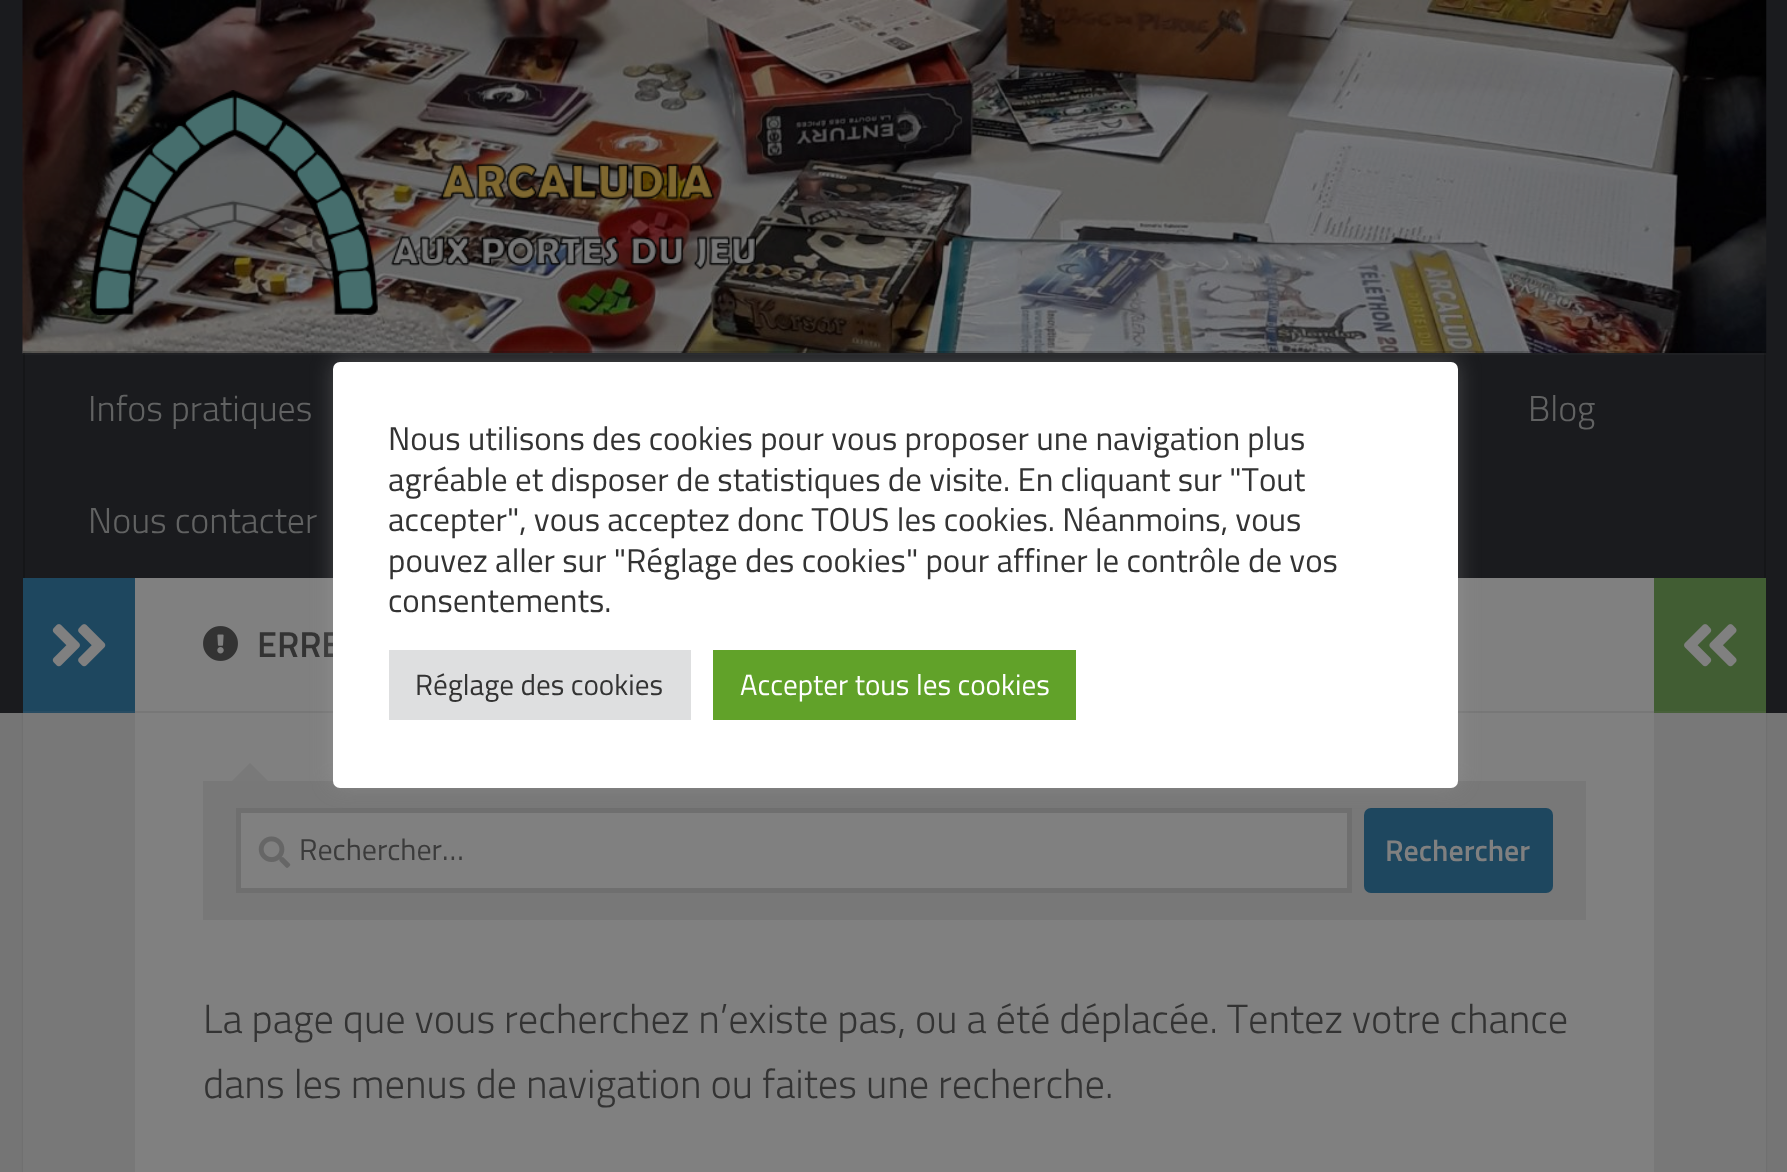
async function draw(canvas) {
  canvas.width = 1787;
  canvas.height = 1172;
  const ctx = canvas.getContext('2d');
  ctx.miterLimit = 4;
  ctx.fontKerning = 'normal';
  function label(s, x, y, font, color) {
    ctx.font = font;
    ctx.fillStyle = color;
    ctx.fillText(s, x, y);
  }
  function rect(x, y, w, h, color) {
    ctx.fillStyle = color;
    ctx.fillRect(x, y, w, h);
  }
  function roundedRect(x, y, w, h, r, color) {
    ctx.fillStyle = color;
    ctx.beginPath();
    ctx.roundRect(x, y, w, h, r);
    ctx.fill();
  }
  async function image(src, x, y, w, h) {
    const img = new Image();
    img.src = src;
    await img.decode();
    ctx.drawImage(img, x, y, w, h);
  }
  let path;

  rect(0, 0, 1787, 1172, '#757575');
  ctx.fillStyle = '#0000001a';
  ctx.filter = 'blur(1px)';
  ctx.beginPath();
  ctx.rect(23, 581, 1743, 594);
  ctx.fill();
  ctx.filter = 'none';
  rect(0, 0, 1787, 713, '#1a1b1e');
  await image('assets/img1.png', 22, 0, 1745, 354);
  await image('assets/img2.png', 90, 90, 666, 225);
  rect(23, 351, 1743, 2, '#00000033');
  rect(25, 353, 1739, 1, '#1a1b1e');
  rect(1764, 353, 2, 225, '#151618');
  rect(23, 353, 2, 225, '#151618');
  rect(23, 353, 1743, 2, '#8080800d');
  label('Infos pratiques', 88, 421, '300 36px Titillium', '#616262');
  label('Blog', 1528, 421, '300 36px Titillium', '#616262');
  label('Nous contacter', 88, 533, '300 36px Titillium', '#616262');
  rect(135, 578, 1519, 594, '#808080');
  rect(23, 713, 112, 459, '#787878');
  rect(23, 578, 112, 133, '#1e475f');
  rect(23, 711, 112, 2, '#284c62');
  await image('assets/img3.png', 52, 624, 54, 43);
  rect(135, 711, 1519, 2, '#777');
  await image('assets/img4.png', 203, 626, 35, 35);
  label('ERRE', 257, 657, '600 36px Titillium', '#333');
  rect(203, 781, 1383, 139, '#787878');
  ctx.fillStyle = '#797979';
  path = new Path2D('M268 781H232L250 763Z');
  ctx.fill(path);
  ctx.fillStyle = '#808080';
  ctx.beginPath();
  ctx.rect(238.5, 810.5, 1111, 80);
  ctx.fill();
  ctx.strokeStyle = '#6f6f6f';
  ctx.lineWidth = 5;
  ctx.stroke();
  await image('assets/img5.png', 258, 836, 33, 32);
  label('Rechercher…', 299, 860, '30px Titillium', '#3b3b3b');
  roundedRect(1364, 808, 189, 85, 7, '#1e475f');
  label('Rechercher', 1385, 861, '600 30px Titillium', '#808080');
  label('La page que vous recherchez n’existe pas, ou a été déplacée. Tentez votre chance', 203, 1033, '300 40.5px Titillium', '#333');
  label('dans les menus de navigation ou faites une recherche.', 203, 1098, '300 40.5px Titillium', '#333');
  rect(1654, 578, 112, 133, '#415d33');
  rect(1654, 711, 112, 2, '#48603a');
  await image('assets/img6.png', 1684, 624, 53, 43);
  rect(1654, 713, 112, 459, '#787878');
  ctx.fillStyle = '#acabab4d';
  ctx.filter = 'blur(11px)';
  ctx.beginPath();
  ctx.roundRect(333, 360, 1125, 425, 7);
  ctx.fill();
  ctx.filter = 'none';
  roundedRect(333, 362, 1125, 426, 7, '#fff');
  label('Nous utilisons des cookies pour vous proposer une navigation plus', 388, 450, '33px Titillium', '#333');
  label('agréable et disposer de statistiques de visite. En cliquant sur "Tout', 388, 491, '33px Titillium', '#333');
  label('accepter", vous acceptez donc TOUS les cookies. Néanmoins, vous', 388, 531, '33px Titillium', '#333');
  label('pouvez aller sur "Réglage des cookies" pour affiner le contrôle de vos', 388, 572, '33px Titillium', '#333');
  label('consentements.', 388, 612, '33px Titillium', '#333');
  rect(389, 650, 302, 70, '#dedfe0');
  label('Réglage des cookies', 415, 695, '29.25px Titillium', '#333');
  rect(713, 650, 363, 70, '#61a229');
  label('Accepter tous les cookies', 740, 695, '29.25px Titillium', '#fff');
}

draw(document.querySelector('canvas'));
